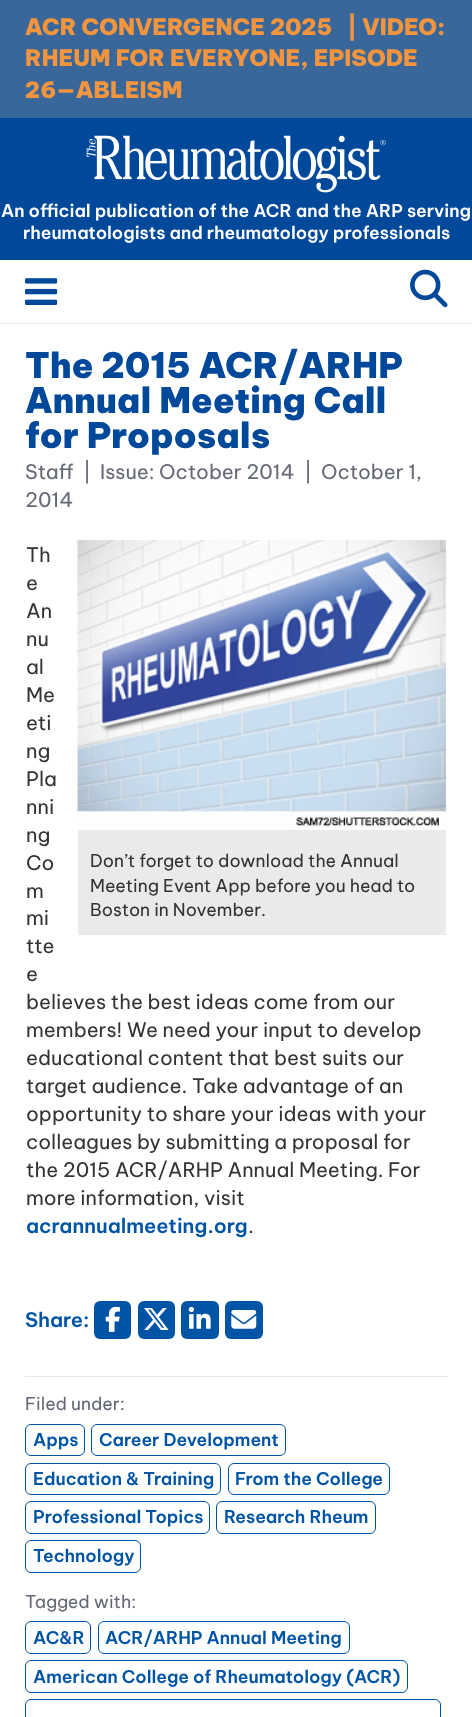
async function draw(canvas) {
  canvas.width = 472;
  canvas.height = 1717;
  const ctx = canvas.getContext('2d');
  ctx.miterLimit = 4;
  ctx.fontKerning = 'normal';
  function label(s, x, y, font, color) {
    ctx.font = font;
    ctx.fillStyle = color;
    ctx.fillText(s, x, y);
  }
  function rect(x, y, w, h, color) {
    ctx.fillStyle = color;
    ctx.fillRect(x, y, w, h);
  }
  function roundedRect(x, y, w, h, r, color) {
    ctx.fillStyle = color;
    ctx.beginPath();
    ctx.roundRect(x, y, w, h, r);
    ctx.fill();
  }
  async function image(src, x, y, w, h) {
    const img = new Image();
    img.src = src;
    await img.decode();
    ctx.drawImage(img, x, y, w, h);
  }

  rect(0, 0, 472, 1717, '#fff');
  rect(0, 0, 472, 118, '#3a6799');
  label('ACR CONVERGENCE 2025', 25, 35, '900 22.5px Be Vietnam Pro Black', '#f3953f');
  label('| VIDEO:', 347, 35, '900 22.5px Be Vietnam Pro Black', '#f3953f');
  label('RHEUM FOR EVERYONE, EPISODE', 25, 66, '900 22.5px Be Vietnam Pro Black', '#f3953f');
  label('26—ABLEISM', 25, 98, '900 22.5px Be Vietnam Pro Black', '#f3953f');
  rect(0, 118, 472, 142, '#004899');
  await image('assets/img1.png', 86, 135, 300, 58);
  label('An official publication of the ACR and the ARP serving', 1, 217, '600 17.5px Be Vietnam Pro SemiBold', '#fff');
  label('rheumatologists and rheumatology professionals', 23, 239, '600 17.5px Be Vietnam Pro SemiBold', '#fff');
  rect(0, 323, 472, 1, '#e9eaec');
  await image('assets/img2.png', 25, 278, 33, 27);
  await image('assets/img3.png', 410, 269, 38, 39);
  label('The 2015 ACR/ARHP', 25, 378, '900 35px Be Vietnam Pro Black', '#004899');
  label('Annual Meeting Call', 25, 413, '900 35px Be Vietnam Pro Black', '#004899');
  label('for Proposals', 25, 448, '900 35px Be Vietnam Pro Black', '#004899');
  label('Staff', 25, 479, '20px Be Vietnam Pro', '#656976');
  label('|', 83, 479, '20px Be Vietnam Pro', '#656976');
  label('Issue: October 2014', 100, 479, '20px Be Vietnam Pro', '#656976');
  label('|', 304, 479, '20px Be Vietnam Pro', '#656976');
  label('October 1,', 321, 479, '20px Be Vietnam Pro', '#656976');
  label('2014', 25, 507, '20px Be Vietnam Pro', '#656976');
  label('Th', 26, 562, '20px Be Vietnam Pro', '#333');
  label('e', 26, 590, '20px Be Vietnam Pro', '#333');
  label('An', 26, 618, '20px Be Vietnam Pro', '#333');
  label('nu', 26, 646, '20px Be Vietnam Pro', '#333');
  label('al', 26, 674, '20px Be Vietnam Pro', '#333');
  label('Me', 26, 702, '20px Be Vietnam Pro', '#333');
  label('eti', 26, 730, '20px Be Vietnam Pro', '#333');
  label('ng', 26, 758, '20px Be Vietnam Pro', '#333');
  label('Pla', 26, 786, '20px Be Vietnam Pro', '#333');
  label('nni', 26, 814, '20px Be Vietnam Pro', '#333');
  label('ng', 26, 842, '20px Be Vietnam Pro', '#333');
  label('Co', 26, 870, '20px Be Vietnam Pro', '#333');
  label('m', 26, 898, '20px Be Vietnam Pro', '#333');
  label('mi', 26, 925, '20px Be Vietnam Pro', '#333');
  label('tte', 26, 953, '20px Be Vietnam Pro', '#333');
  label('e', 26, 981, '20px Be Vietnam Pro', '#333');
  label('believes the best ideas come from our', 26, 1009, '20px Be Vietnam Pro', '#333');
  label('members! We need your input to develop', 26, 1037, '20px Be Vietnam Pro', '#333');
  label('educational content that best suits our', 26, 1065, '20px Be Vietnam Pro', '#333');
  label('target audience. Take advantage of an', 26, 1093, '20px Be Vietnam Pro', '#333');
  label('opportunity to share your ideas with your', 26, 1121, '20px Be Vietnam Pro', '#333');
  label('colleagues by submitting a proposal for', 26, 1149, '20px Be Vietnam Pro', '#333');
  label('the 2015 ACR/ARHP Annual Meeting. For', 26, 1177, '20px Be Vietnam Pro', '#333');
  label('more information, visit', 26, 1205, '20px Be Vietnam Pro', '#333');
  label('acrannualmeeting.org', 26, 1233, '600 20px Be Vietnam Pro SemiBold', '#0054a6');
  label('.', 248, 1233, '20px Be Vietnam Pro', '#333');
  rect(78, 830, 368, 105, '#e9eaec');
  await image('assets/img4.png', 77, 540, 370, 290);
  label('Don’t forget to download the Annual', 90, 867, '17.5px Be Vietnam Pro', '#333');
  label('Meeting Event App before you head to', 90, 892, '17.5px Be Vietnam Pro', '#333');
  label('Boston in November.', 90, 916, '17.5px Be Vietnam Pro', '#333');
  label('Share:', 25, 1327, '600 20px Be Vietnam Pro SemiBold', '#0054a6');
  roundedRect(94, 1301, 37, 38, 6, '#0054a6');
  await image('assets/img5.png', 105, 1306, 15, 26);
  roundedRect(138, 1301, 37, 38, 6, '#0054a6');
  await image('assets/img6.png', 144, 1308, 25, 22);
  roundedRect(181, 1301, 38, 38, 6, '#0054a6');
  await image('assets/img7.png', 188, 1306, 23, 23);
  roundedRect(225, 1301, 38, 38, 6, '#0054a6');
  await image('assets/img8.png', 231, 1310, 26, 19);
  rect(25, 1376, 423, 1, '#e9e9e9');
  label('Filed under:', 25, 1410, '17.5px Be Vietnam Pro', '#656976');
  ctx.beginPath();
  ctx.roundRect(25.5, 1424.5, 59, 31, 5.5);
  ctx.strokeStyle = '#0054a6';
  ctx.stroke();
  label('Apps', 33, 1446, '600 17.5px Be Vietnam Pro SemiBold', '#0054a6');
  ctx.beginPath();
  ctx.roundRect(91.5, 1424.5, 194, 31, 5.5);
  ctx.stroke();
  label('Career Development', 99, 1446, '600 17.5px Be Vietnam Pro SemiBold', '#0054a6');
  ctx.beginPath();
  ctx.roundRect(25.5, 1463.5, 195, 31, 5.5);
  ctx.stroke();
  label('Education & Training', 33, 1485, '600 17.5px Be Vietnam Pro SemiBold', '#0054a6');
  ctx.beginPath();
  ctx.roundRect(228.5, 1463.5, 161, 31, 5.5);
  ctx.stroke();
  label('From the College', 235, 1485, '600 17.5px Be Vietnam Pro SemiBold', '#0054a6');
  ctx.beginPath();
  ctx.roundRect(25.5, 1501.5, 184, 32, 5.5);
  ctx.stroke();
  label('Professional Topics', 33, 1523, '600 17.5px Be Vietnam Pro SemiBold', '#0054a6');
  ctx.beginPath();
  ctx.roundRect(216.5, 1501.5, 159, 32, 5.5);
  ctx.stroke();
  label('Research Rheum', 224, 1523, '600 17.5px Be Vietnam Pro SemiBold', '#0054a6');
  ctx.beginPath();
  ctx.roundRect(25.5, 1540.5, 115, 32, 5.5);
  ctx.stroke();
  label('Technology', 33, 1562, '600 17.5px Be Vietnam Pro SemiBold', '#0054a6');
  label('Tagged with:', 25, 1608, '17.5px Be Vietnam Pro', '#656976');
  ctx.beginPath();
  ctx.roundRect(25.5, 1621.5, 65, 32, 5.5);
  ctx.stroke();
  label('AC&R', 33, 1644, '600 17.5px Be Vietnam Pro SemiBold', '#0054a6');
  ctx.beginPath();
  ctx.roundRect(98.5, 1621.5, 251, 32, 5.5);
  ctx.stroke();
  label('ACR/ARHP Annual Meeting', 105, 1644, '600 17.5px Be Vietnam Pro SemiBold', '#0054a6');
  ctx.beginPath();
  ctx.roundRect(25.5, 1660.5, 382, 32, 5.5);
  ctx.stroke();
  label('American College of Rheumatology (ACR)', 33, 1683, '600 17.5px Be Vietnam Pro SemiBold', '#0054a6');
  ctx.beginPath();
  ctx.roundRect(25.5, 1699.5, 415, 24, 5.5);
  ctx.stroke();
}

draw(document.querySelector('canvas'));
